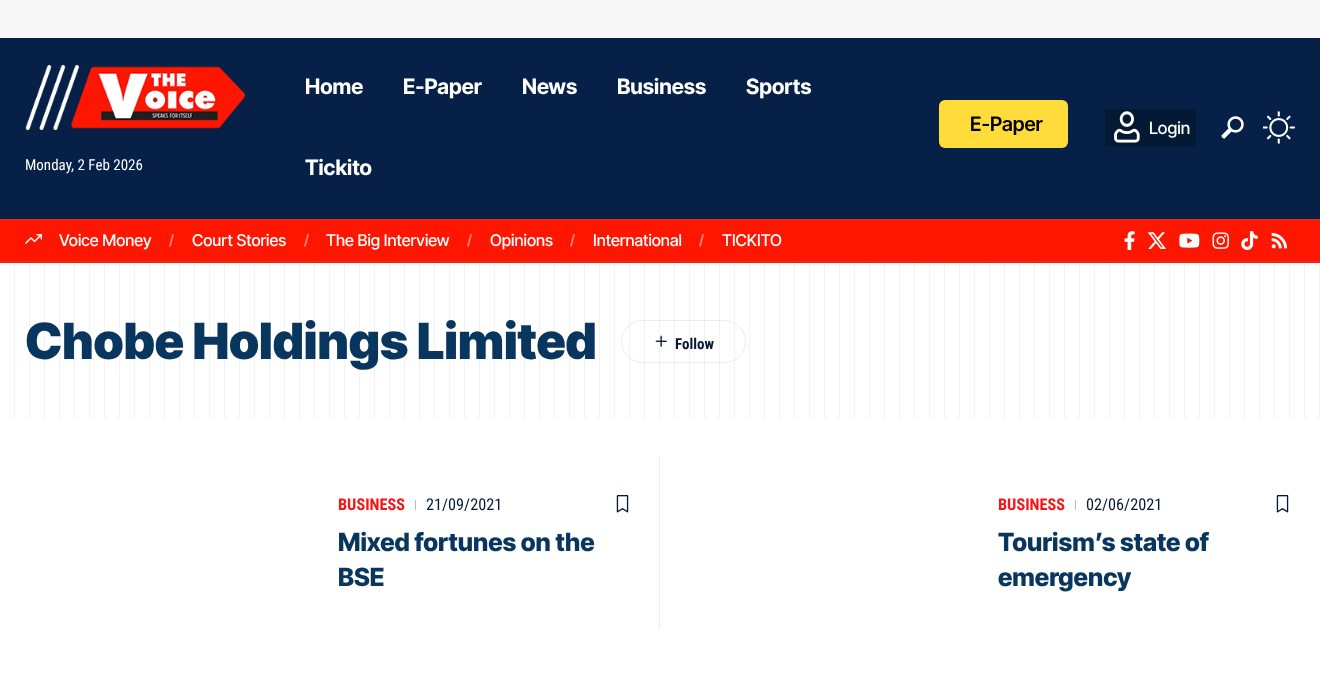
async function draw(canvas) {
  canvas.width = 1320;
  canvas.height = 693;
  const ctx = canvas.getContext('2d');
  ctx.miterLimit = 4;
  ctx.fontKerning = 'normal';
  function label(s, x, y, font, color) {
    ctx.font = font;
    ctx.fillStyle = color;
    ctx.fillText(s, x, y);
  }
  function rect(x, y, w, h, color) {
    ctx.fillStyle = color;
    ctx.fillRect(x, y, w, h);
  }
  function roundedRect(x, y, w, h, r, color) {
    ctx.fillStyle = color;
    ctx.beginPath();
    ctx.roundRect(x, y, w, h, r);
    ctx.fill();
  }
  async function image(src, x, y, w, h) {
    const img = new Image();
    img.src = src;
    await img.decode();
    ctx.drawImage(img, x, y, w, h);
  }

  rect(0, 0, 1320, 693, '#fff');
  rect(0, 0, 1320, 38, '#f7f7f7');
  rect(0, 38, 1320, 181, '#062047');
  await image('assets/img1.png', 25, 65, 220, 65);
  label('Monday, 2 Feb 2026', 25, 170, '15px Roboto Condensed', '#fff');
  label('Home', 305, 94, 'bold 21.25px Inter Tight', '#fff');
  label('E-Paper', 403, 94, 'bold 21.25px Inter Tight', '#fff');
  label('News', 522, 94, 'bold 21.25px Inter Tight', '#fff');
  label('Business', 617, 94, 'bold 21.25px Inter Tight', '#fff');
  label('Sports', 746, 94, 'bold 21.25px Inter Tight', '#fff');
  label('Tickito', 305, 175, 'bold 21.25px Inter Tight', '#fff');
  roundedRect(939, 100, 129, 48, 6, '#ffdc39');
  label('E-Paper', 970, 131, '600 20px Inter Tight', '#000');
  rect(1105, 109, 91, 37, '#031934');
  await image('assets/img2.png', 1114, 111, 26, 32);
  label('Login', 1149, 134, '500 17px Inter Tight', '#fff');
  await image('assets/img3.png', 1221, 116, 23, 23);
  await image('assets/img4.png', 1263, 111, 32, 33);
  rect(0, 220, 1320, 43, '#ff1600');
  rect(0, 219, 1320, 1, '#df3424');
  rect(0, 261, 1320, 1, '#df3424');
  await image('assets/img5.png', 25, 234, 17, 10);
  label('Voice Money', 59, 246, '500 16.25px Inter Tight', '#fff');
  label('/', 169, 245, 'bold 14px Inter Tight', '#ff8377');
  label('Court Stories', 192, 246, '500 16.25px Inter Tight', '#fff');
  label('/', 304, 245, 'bold 14px Inter Tight', '#ff8377');
  label('The Big Interview', 326, 246, '500 16.25px Inter Tight', '#fff');
  label('/', 467, 245, 'bold 14px Inter Tight', '#ff8377');
  label('Opinions', 490, 246, '500 16.25px Inter Tight', '#fff');
  label('/', 570, 245, 'bold 14px Inter Tight', '#ff8377');
  label('International', 593, 246, '500 16.25px Inter Tight', '#fff');
  label('/', 699, 245, 'bold 14px Inter Tight', '#ff8377');
  label('TICKITO', 722, 246, '500 16.25px Inter Tight', '#fff');
  await image('assets/img6.png', 1124, 231, 11, 19);
  await image('assets/img7.png', 1147, 232, 19, 17);
  await image('assets/img8.png', 1179, 233, 21, 15);
  await image('assets/img9.png', 1212, 232, 17, 17);
  await image('assets/img10.png', 1241, 231, 17, 19);
  await image('assets/img11.png', 1271, 232, 17, 17);
  label('Chobe Holdings Limited', 25, 359, '900 50px Inter Tight', '#09365e');
  ctx.beginPath();
  ctx.roundRect(621.5, 320.5, 124, 42, 21);
  ctx.strokeStyle = '#ededed';
  ctx.stroke();
  await image('assets/img13.png', 655, 335, 12, 12);
  label('Follow', 675, 349, 'bold 15px Roboto Condensed', '#031934');
  await image('assets/img12.png', 14, 263, 1306, 156);
  label('BUSINESS', 338, 510, 'bold 16.25px Roboto Condensed', '#f51416');
  rect(415, 500, 1, 10, '#b3bac2');
  label('21/09/2021', 426, 510, '16.25px Roboto Condensed', '#031934');
  await image('assets/img14.png', 616, 495, 13, 18);
  label('Mixed fortunes on the', 338, 551, '800 25px Inter Tight', '#09365e');
  label('BSE', 338, 586, '800 25px Inter Tight', '#09365e');
  rect(659, 456, 1, 173, '#ededed');
  label('BUSINESS', 998, 510, 'bold 16.25px Roboto Condensed', '#f51416');
  rect(1075, 500, 1, 10, '#b3bac2');
  label('02/06/2021', 1086, 510, '16.25px Roboto Condensed', '#031934');
  await image('assets/img14.png', 1276, 495, 13, 18);
  label('Tourism’s state of', 998, 551, '800 25px Inter Tight', '#09365e');
  label('emergency', 998, 586, '800 25px Inter Tight', '#09365e');
}

draw(document.querySelector('canvas'));
